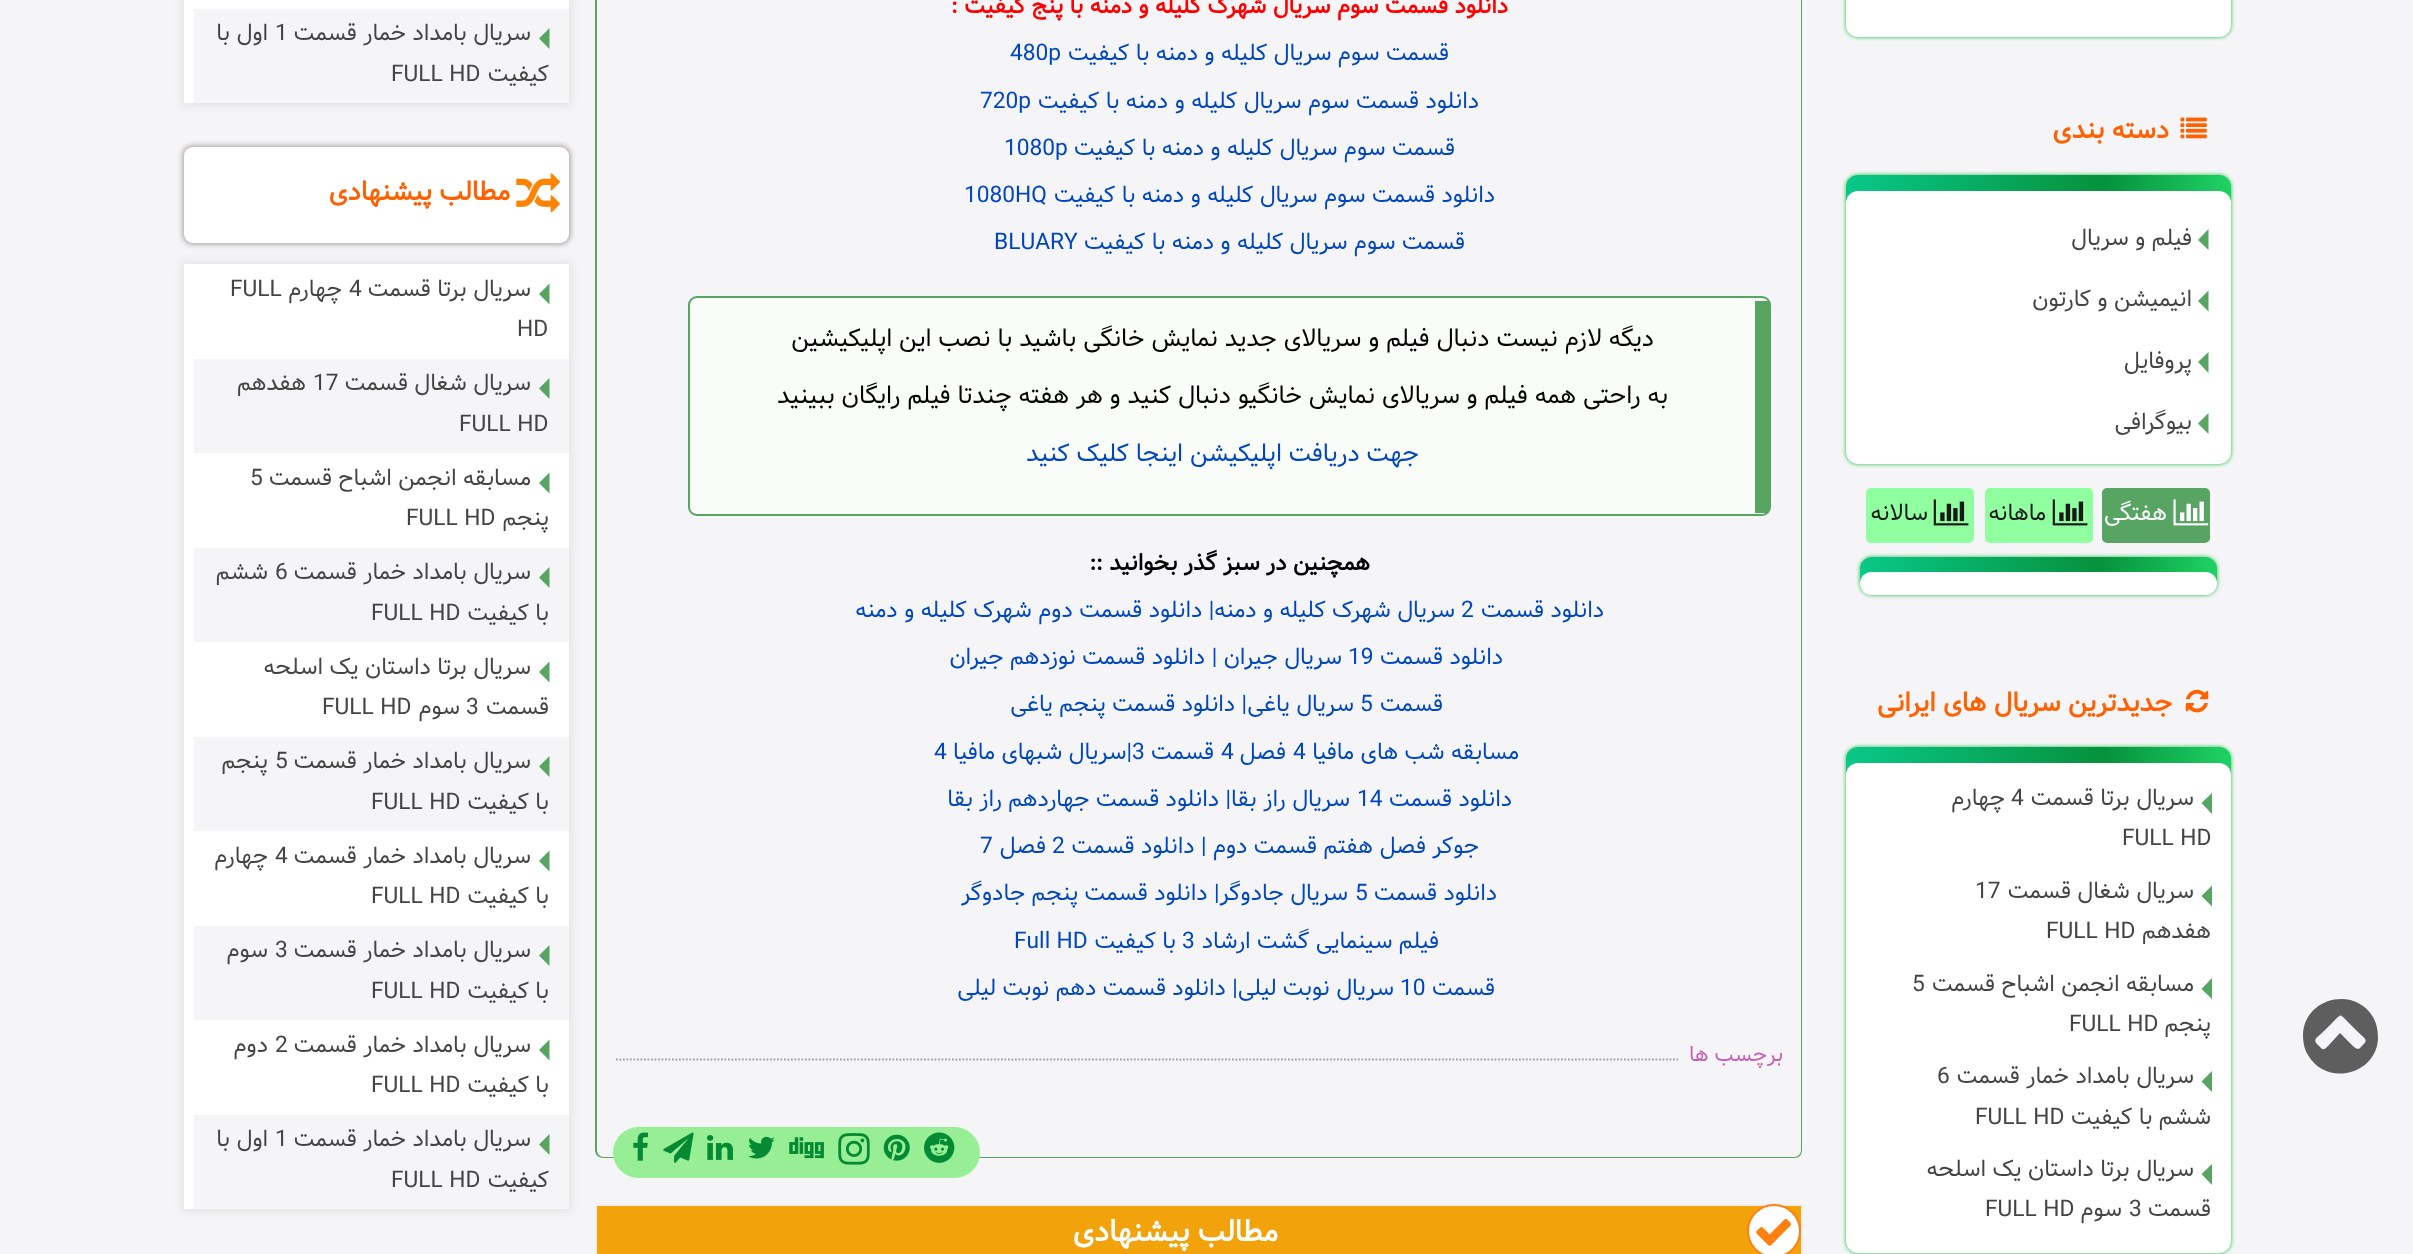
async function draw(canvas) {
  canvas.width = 2413;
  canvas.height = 1254;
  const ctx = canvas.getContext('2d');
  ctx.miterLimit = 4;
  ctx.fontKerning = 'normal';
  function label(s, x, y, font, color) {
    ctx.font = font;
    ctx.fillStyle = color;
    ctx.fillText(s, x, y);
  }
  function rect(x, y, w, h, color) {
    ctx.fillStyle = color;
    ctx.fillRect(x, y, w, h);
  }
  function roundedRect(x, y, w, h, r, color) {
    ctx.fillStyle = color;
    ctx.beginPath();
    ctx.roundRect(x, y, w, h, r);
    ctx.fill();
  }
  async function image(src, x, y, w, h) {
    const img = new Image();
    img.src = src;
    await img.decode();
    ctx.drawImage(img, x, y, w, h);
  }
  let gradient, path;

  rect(0, 0, 2413, 1254, '#f5f5f7');
  ctx.fillStyle = '#5e5e5f';
  path = new Path2D('M2360 1048C2369 1039 2367 1041 2357 1031L2346 1020C2340 1014 2341 1014 2335 1020L2324 1031C2317 1038 2312 1039 2318 1045C2323 1050 2323 1051 2328 1046L2340 1033L2350 1043C2352 1045 2357 1051 2360 1048ZM2373 1017C2377 1024 2378 1031 2378 1039C2376 1075 2326 1087 2308 1055C2304 1049 2303 1041 2303 1034C2305 997 2355 986 2373 1017Z');
  ctx.fill(path);
  ctx.fillStyle = '#16bf40';
  ctx.filter = 'blur(2px)';
  ctx.beginPath();
  ctx.roundRect(1846, -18, 385, 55, 12);
  ctx.fill();
  ctx.filter = 'none';
  roundedRect(1846, -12, 385, 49, 12, '#fff');
  await image('assets/img1.png', 2180, 117, 27, 22);
  ctx.direction = 'rtl';
  label('دسته بندی', 2169, 138, 'bold 26.25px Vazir', '#ff6000');
  ctx.fillStyle = '#16bf40';
  ctx.filter = 'blur(2px)';
  ctx.beginPath();
  ctx.roundRect(1846, 175, 385, 289, 12);
  ctx.fill();
  ctx.filter = 'none';
  gradient = ctx.createLinearGradient(1846, 319, 2231, 319);
  gradient.addColorStop(0, '#09c889');
  gradient.addColorStop(0.67, '#06913c');
  gradient.addColorStop(1, '#1ed265');
  ctx.fillStyle = gradient;
  ctx.beginPath();
  ctx.roundRect(1846, 175, 385, 289, 12);
  ctx.fill();
  roundedRect(1846, 191, 385, 273, 12, '#fff');
  ctx.fillStyle = '#57a463';
  path = new Path2D('M2208.5 229V250L2198 240Z');
  ctx.fill(path);
  label('فیلم و سریال', 2192, 245, '22.75px Vazir', '#444');
  ctx.fillStyle = '#57a463';
  path = new Path2D('M2208.5 290.5V311.5L2198 301Z');
  ctx.fill(path);
  label('انیمیشن و کارتون', 2192, 306, '22.75px Vazir', '#444');
  ctx.fillStyle = '#57a463';
  path = new Path2D('M2208.5 352V373L2198 362Z');
  ctx.fill(path);
  label('پروفایل', 2192, 368, '22.75px Vazir', '#444');
  ctx.fillStyle = '#57a463';
  path = new Path2D('M2208.5 413V434L2198 423.5Z');
  ctx.fill(path);
  label('بیوگرافی', 2192, 429, '22.75px Vazir', '#444');
  roundedRect(2102, 488, 108, 55, 5, '#57a463');
  await image('assets/img2.png', 2173, 499, 36, 27);
  label('هفتگی', 2167, 520, '22.75px Vazir', '#fff');
  roundedRect(1985, 488, 108, 55, 5, '#8fffa0');
  await image('assets/img3.png', 2052, 499, 36, 27);
  label('ماهانه', 2046, 520, '22.75px Vazir', '#1a1818');
  roundedRect(1866, 488, 108, 55, 5, '#8fffa0');
  await image('assets/img3.png', 1933, 499, 36, 27);
  label('سالانه', 1928, 520, '22.75px Vazir', '#1a1818');
  ctx.fillStyle = '#16bf40';
  ctx.filter = 'blur(2px)';
  ctx.beginPath();
  ctx.roundRect(1860, 557, 357, 38, 12);
  ctx.fill();
  ctx.filter = 'none';
  gradient = ctx.createLinearGradient(1860, 576, 2217, 576);
  gradient.addColorStop(0, '#09c889');
  gradient.addColorStop(0.67, '#06913c');
  gradient.addColorStop(1, '#1ed265');
  ctx.fillStyle = gradient;
  ctx.beginPath();
  ctx.roundRect(1860, 557, 357, 38, 12);
  ctx.fill();
  roundedRect(1860, 572, 357, 23, 11.5, '#fff');
  await image('assets/img4.png', 2185, 689, 24, 24);
  label('جدیدترین سریال های ایرانی', 2172, 711, 'bold 26.25px Vazir', '#ff6000');
  ctx.fillStyle = '#16bf40';
  ctx.filter = 'blur(2px)';
  ctx.beginPath();
  ctx.roundRect(1846, 747, 385, 506, 12);
  ctx.fill();
  ctx.filter = 'none';
  gradient = ctx.createLinearGradient(1846, 1000, 2231, 1000);
  gradient.addColorStop(0, '#09c889');
  gradient.addColorStop(0.67, '#06913c');
  gradient.addColorStop(1, '#1ed265');
  ctx.fillStyle = gradient;
  ctx.beginPath();
  ctx.roundRect(1846, 747, 385, 506, 12);
  ctx.fill();
  roundedRect(1846, 763, 385, 490, 12, '#fff');
  ctx.fillStyle = '#57a463';
  path = new Path2D('M2212 793V814L2201.5 803Z');
  ctx.fill(path);
  label('سریال برتا قسمت', 2194, 805, '22.75px Vazir', '#444');
  ctx.direction = 'ltr';
  label('4', 2011, 805, '22.75px Vazir', '#444');
  ctx.direction = 'rtl';
  label('چهارم', 2005, 805, '22.75px Vazir', '#444');
  ctx.direction = 'ltr';
  label('FULL HD', 2122, 845, '22.75px Vazir', '#444');
  ctx.fillStyle = '#57a463';
  path = new Path2D('M2212 885.5V906.5L2201.5 896Z');
  ctx.fill(path);
  ctx.direction = 'rtl';
  label('سریال شغال قسمت', 2194, 898, '22.75px Vazir', '#444');
  ctx.direction = 'ltr';
  label('17', 1975, 898, '22.75px Vazir', '#444');
  ctx.direction = 'rtl';
  label('هفدهم', 2211, 938, '22.75px Vazir', '#444');
  ctx.direction = 'ltr';
  label('FULL HD', 2046, 938, '22.75px Vazir', '#444');
  ctx.fillStyle = '#57a463';
  path = new Path2D('M2212 978V999L2201.5 989Z');
  ctx.fill(path);
  ctx.direction = 'rtl';
  label('مسابقه انجمن اشباح قسمت', 2194, 991, '22.75px Vazir', '#444');
  ctx.direction = 'ltr';
  label('5', 1912, 991, '22.75px Vazir', '#444');
  ctx.direction = 'rtl';
  label('پنجم', 2211, 1031, '22.75px Vazir', '#444');
  ctx.direction = 'ltr';
  label('FULL HD', 2069, 1031, '22.75px Vazir', '#444');
  ctx.fillStyle = '#57a463';
  path = new Path2D('M2212 1071V1092L2201.5 1081.5Z');
  ctx.fill(path);
  ctx.direction = 'rtl';
  label('سریال بامداد خمار قسمت', 2194, 1083, '22.75px Vazir', '#444');
  ctx.direction = 'ltr';
  label('6', 1937, 1083, '22.75px Vazir', '#444');
  ctx.direction = 'rtl';
  label('ششم با کیفیت', 2211, 1124, '22.75px Vazir', '#444');
  ctx.direction = 'ltr';
  label('FULL HD', 1975, 1124, '22.75px Vazir', '#444');
  ctx.fillStyle = '#57a463';
  path = new Path2D('M2212 1164V1185L2201.5 1174Z');
  ctx.fill(path);
  ctx.direction = 'rtl';
  label('سریال برتا داستان یک اسلحه', 2194, 1176, '22.75px Vazir', '#444');
  label('قسمت', 2211, 1216, '22.75px Vazir', '#444');
  ctx.direction = 'ltr';
  label('3', 2129, 1216, '22.75px Vazir', '#444');
  ctx.direction = 'rtl';
  label('سوم', 2122, 1216, '22.75px Vazir', '#444');
  ctx.direction = 'ltr';
  label('FULL HD', 1985, 1216, '22.75px Vazir', '#444');
  ctx.fillStyle = '#57a463';
  path = new Path2D('M595-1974H1802V1150C1802 1155 1799 1158 1794 1158H604C599 1158 595 1155 595 1150ZM597-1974H1801V1150C1801 1154 1798 1157 1794 1157H604C600 1157 597 1154 597 1150Z');
  ctx.fill(path, 'evenodd');
  ctx.direction = 'rtl';
  label('دانلود قسمت سوم سریال شهرک کلیله و دمنه با پنج کیفیت :', 1508, 13, 'bold 22.75px Vazir', '#f00');
  label('قسمت سوم سریال کلیله و دمنه با کیفیت', 1449, 60, '22.75px Vazir', '#0046c0');
  ctx.direction = 'ltr';
  label('480p', 1010, 60, '22.75px Vazir', '#0046c0');
  ctx.direction = 'rtl';
  label('دانلود قسمت سوم سریال کلیله و دمنه با کیفیت', 1479, 108, '22.75px Vazir', '#0046c0');
  ctx.direction = 'ltr';
  label('720p', 980, 108, '22.75px Vazir', '#0046c0');
  ctx.direction = 'rtl';
  label('قسمت سوم سریال کلیله و دمنه با کیفیت', 1455, 155, '22.75px Vazir', '#0046c0');
  ctx.direction = 'ltr';
  label('1080p', 1004, 155, '22.75px Vazir', '#0046c0');
  ctx.direction = 'rtl';
  label('دانلود قسمت سوم سریال کلیله و دمنه با کیفیت', 1495, 202, '22.75px Vazir', '#0046c0');
  ctx.direction = 'ltr';
  label('1080HQ', 964, 202, '22.75px Vazir', '#0046c0');
  ctx.direction = 'rtl';
  label('قسمت سوم سریال کلیله و دمنه با کیفیت', 1465, 249, '22.75px Vazir', '#0046c0');
  ctx.direction = 'ltr';
  label('BLUARY', 994, 249, '22.75px Vazir', '#0046c0');
  ctx.fillStyle = '#fafcf9';
  path = new Path2D('M696 298H1755V514H696C693 514 690 511 690 508V304C690 301 693 298 696 298Z');
  ctx.fill(path);
  ctx.beginPath();
  ctx.roundRect(689, 297, 1081, 218, 8);
  ctx.strokeStyle = '#57a463';
  ctx.lineWidth = 2;
  ctx.stroke();
  rect(1755, 301, 14, 212, '#57a463');
  ctx.direction = 'rtl';
  label('دیگه لازم نیست دنبال فیلم و سریالای جدید نمایش خانگی باشید با نصب این اپلیکیشین', 1654, 346, '24.5px Vazir', '#000');
  label('به راحتی همه فیلم و سریالای نمایش خانگیو دنبال کنید و هر هفته چندتا فیلم رایگان ببینید', 1668, 403, '24.5px Vazir', '#000');
  label('جهت دریافت اپلیکیشن اینجا کلیک کنید', 1419, 461, '24.5px Vazir', '#0046c0');
  label('همچنین در سبز گذر بخوانید ::', 1370, 570, 'bold 22.75px Vazir', '#000');
  label('دانلود قسمت', 1604, 617, '22.75px Vazir', '#0046c0');
  ctx.direction = 'ltr';
  label('2', 1461, 617, '22.75px Vazir', '#0046c0');
  ctx.direction = 'rtl';
  label('سریال شهرک کلیله و دمنه| دانلود قسمت دوم شهرک کلیله و دمنه', 1455, 617, '22.75px Vazir', '#0046c0');
  label('دانلود قسمت', 1503, 664, '22.75px Vazir', '#0046c0');
  ctx.direction = 'ltr';
  label('19', 1348, 664, '22.75px Vazir', '#0046c0');
  ctx.direction = 'rtl';
  label('سریال جیران | دانلود قسمت نوزدهم جیران', 1342, 664, '22.75px Vazir', '#0046c0');
  label('قسمت', 1443, 711, '22.75px Vazir', '#0046c0');
  ctx.direction = 'ltr';
  label('5', 1360, 711, '22.75px Vazir', '#0046c0');
  ctx.direction = 'rtl';
  label('سریال یاغی| دانلود قسمت پنجم یاغی', 1354, 711, '22.75px Vazir', '#0046c0');
  label('مسابقه شب های مافیا', 1519, 759, '22.75px Vazir', '#0046c0');
  ctx.direction = 'ltr';
  label('4', 1293, 759, '22.75px Vazir', '#0046c0');
  ctx.direction = 'rtl';
  label('فصل', 1286, 759, '22.75px Vazir', '#0046c0');
  ctx.direction = 'ltr';
  label('4', 1221, 759, '22.75px Vazir', '#0046c0');
  ctx.direction = 'rtl';
  label('قسمت', 1214, 759, '22.75px Vazir', '#0046c0');
  ctx.direction = 'ltr';
  label('3', 1132, 759, '22.75px Vazir', '#0046c0');
  ctx.direction = 'rtl';
  label('|سریال شبهای مافیا', 1132, 759, '22.75px Vazir', '#0046c0');
  ctx.direction = 'ltr';
  label('4', 934, 759, '22.75px Vazir', '#0046c0');
  ctx.direction = 'rtl';
  label('دانلود قسمت', 1512, 806, '22.75px Vazir', '#0046c0');
  ctx.direction = 'ltr';
  label('14', 1357, 806, '22.75px Vazir', '#0046c0');
  ctx.direction = 'rtl';
  label('سریال راز بقا| دانلود قسمت جهاردهم راز بقا', 1350, 806, '22.75px Vazir', '#0046c0');
  label('جوکر فصل هفتم قسمت دوم | دانلود قسمت', 1479, 853, '22.75px Vazir', '#0046c0');
  ctx.direction = 'ltr';
  label('2', 1052, 853, '22.75px Vazir', '#0046c0');
  ctx.direction = 'rtl';
  label('فصل', 1046, 853, '22.75px Vazir', '#0046c0');
  ctx.direction = 'ltr';
  label('7', 980, 853, '22.75px Vazir', '#0046c0');
  ctx.direction = 'rtl';
  label('دانلود قسمت', 1497, 900, '22.75px Vazir', '#0046c0');
  ctx.direction = 'ltr';
  label('5', 1355, 900, '22.75px Vazir', '#0046c0');
  ctx.direction = 'rtl';
  label('سریال جادوگر| دانلود قسمت پنجم جادوگر', 1348, 900, '22.75px Vazir', '#0046c0');
  label('فیلم سینمایی گشت ارشاد', 1439, 948, '22.75px Vazir', '#0046c0');
  ctx.direction = 'ltr';
  label('3', 1182, 948, '22.75px Vazir', '#0046c0');
  ctx.direction = 'rtl';
  label('با کیفیت', 1176, 948, '22.75px Vazir', '#0046c0');
  ctx.direction = 'ltr';
  label('Full HD', 1014, 948, '22.75px Vazir', '#0046c0');
  ctx.direction = 'rtl';
  label('قسمت', 1495, 995, '22.75px Vazir', '#0046c0');
  ctx.direction = 'ltr';
  label('10', 1400, 995, '22.75px Vazir', '#0046c0');
  ctx.direction = 'rtl';
  label('سریال نوبت لیلی| دانلود قسمت دهم نوبت لیلی', 1394, 995, '22.75px Vazir', '#0046c0');
  path = new Path2D('M616 1059.5H1783');
  ctx.strokeStyle = '#9f9fa1';
  ctx.lineWidth = 1.8;
  ctx.setLineDash([1.75, 1.75]);
  ctx.stroke(path);
  rect(1678, 1058, 105, 3, '#f5f5f7');
  label('برچسب ها', 1783, 1061, '21px Vazir', '#c660b5');
  roundedRect(613, 1127, 367, 51, 25.5, '#98ee95');
  await image('assets/img5.png', 924, 1132, 31, 31);
  await image('assets/img6.png', 883, 1134, 27, 27);
  await image('assets/img7.png', 838, 1133, 32, 32);
  await image('assets/img8.png', 789, 1137, 35, 22);
  await image('assets/img9.png', 748, 1136, 27, 23);
  await image('assets/img10.png', 707, 1135, 26, 25);
  await image('assets/img11.png', 663, 1132, 31, 31);
  await image('assets/img12.png', 633, 1132, 15, 29);
  ctx.fillStyle = '#f2a30b';
  ctx.beginPath();
  ctx.rect(596, 1205, 1206, 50);
  ctx.fill();
  ctx.strokeStyle = '#eee';
  ctx.lineWidth = 2;
  ctx.setLineDash([]);
  ctx.stroke();
  ctx.fillStyle = '#fff';
  ctx.beginPath();
  ctx.arc(1774, 1231, 26, 0, 2 * Math.PI);
  ctx.fill();
  ctx.strokeStyle = '#ff7f0f';
  ctx.stroke();
  await image('assets/img13.png', 1756, 1219, 35, 27);
  label('مطالب پیشنهادی', 1278, 1241, 'bold 29.75px Vazir', '#fff');
  ctx.fillStyle = '#e0e0e0';
  ctx.filter = 'blur(5px)';
  ctx.beginPath();
  ctx.rect(182, -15, 389, 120);
  ctx.fill();
  ctx.filter = 'none';
  rect(184, 0, 385, 103, '#fff');
  rect(194, 9, 375, 94, '#f5f5f7');
  ctx.fillStyle = '#57a463';
  path = new Path2D('M549.5 28V49L539 38.5Z');
  ctx.fill(path);
  label('سریال بامداد خمار قسمت', 531, 40, '22.75px Vazir', '#444');
  ctx.direction = 'ltr';
  label('1', 275, 40, '22.75px Vazir', '#444');
  ctx.direction = 'rtl';
  label('اول با', 268, 40, '22.75px Vazir', '#444');
  label('کیفیت', 549, 81, '22.75px Vazir', '#444');
  ctx.direction = 'ltr';
  label('FULL HD', 391, 81, '22.75px Vazir', '#444');
  ctx.fillStyle = '#b7b0b0';
  ctx.filter = 'blur(2.5px)';
  ctx.beginPath();
  ctx.roundRect(182, 145, 389, 100, 11);
  ctx.fill();
  ctx.filter = 'none';
  roundedRect(184, 147, 385, 96, 9, '#fff');
  await image('assets/img14.png', 516, 173, 44, 40);
  ctx.direction = 'rtl';
  label('مطالب پیشنهادی', 510, 200, 'bold 26.25px Vazir', '#ff6000');
  ctx.fillStyle = '#e0e0e0';
  ctx.filter = 'blur(5px)';
  ctx.beginPath();
  ctx.rect(182, 263, 389, 948);
  ctx.fill();
  ctx.filter = 'none';
  rect(184, 264, 385, 945, '#fff');
  ctx.fillStyle = '#57a463';
  path = new Path2D('M549.5 283.5V304.5L539 294Z');
  ctx.fill(path);
  label('سریال برتا قسمت', 531, 296, '22.75px Vazir', '#444');
  ctx.direction = 'ltr';
  label('4', 349, 296, '22.75px Vazir', '#444');
  ctx.direction = 'rtl';
  label('چهارم', 342, 296, '22.75px Vazir', '#444');
  ctx.direction = 'ltr';
  label('FULL', 230, 296, '22.75px Vazir', '#444');
  label('HD', 517, 336, '22.75px Vazir', '#444');
  rect(194, 359, 375, 94, '#f5f5f7');
  ctx.fillStyle = '#57a463';
  path = new Path2D('M549.5 378V399L539 388.5Z');
  ctx.fill(path);
  ctx.direction = 'rtl';
  label('سریال شغال قسمت', 531, 390, '22.75px Vazir', '#444');
  ctx.direction = 'ltr';
  label('17', 313, 390, '22.75px Vazir', '#444');
  ctx.direction = 'rtl';
  label('هفدهم', 306, 390, '22.75px Vazir', '#444');
  ctx.direction = 'ltr';
  label('FULL HD', 459, 431, '22.75px Vazir', '#444');
  ctx.fillStyle = '#57a463';
  path = new Path2D('M549.5 472.5V493.5L539 483Z');
  ctx.fill(path);
  ctx.direction = 'rtl';
  label('مسابقه انجمن اشباح قسمت', 531, 485, '22.75px Vazir', '#444');
  ctx.direction = 'ltr';
  label('5', 250, 485, '22.75px Vazir', '#444');
  ctx.direction = 'rtl';
  label('پنجم', 549, 525, '22.75px Vazir', '#444');
  ctx.direction = 'ltr';
  label('FULL HD', 406, 525, '22.75px Vazir', '#444');
  rect(194, 548, 375, 94, '#f5f5f7');
  ctx.fillStyle = '#57a463';
  path = new Path2D('M549.5 567V588L539 577.5Z');
  ctx.fill(path);
  ctx.direction = 'rtl';
  label('سریال بامداد خمار قسمت', 531, 579, '22.75px Vazir', '#444');
  ctx.direction = 'ltr';
  label('6', 275, 579, '22.75px Vazir', '#444');
  ctx.direction = 'rtl';
  label('ششم', 268, 579, '22.75px Vazir', '#444');
  label('با کیفیت', 549, 620, '22.75px Vazir', '#444');
  ctx.direction = 'ltr';
  label('FULL HD', 371, 620, '22.75px Vazir', '#444');
  ctx.fillStyle = '#57a463';
  path = new Path2D('M549.5 661.5V682.5L539 672Z');
  ctx.fill(path);
  ctx.direction = 'rtl';
  label('سریال برتا داستان یک اسلحه', 531, 674, '22.75px Vazir', '#444');
  label('قسمت', 549, 714, '22.75px Vazir', '#444');
  ctx.direction = 'ltr';
  label('3', 466, 714, '22.75px Vazir', '#444');
  ctx.direction = 'rtl';
  label('سوم', 460, 714, '22.75px Vazir', '#444');
  ctx.direction = 'ltr';
  label('FULL HD', 322, 714, '22.75px Vazir', '#444');
  rect(194, 737, 375, 94, '#f5f5f7');
  ctx.fillStyle = '#57a463';
  path = new Path2D('M549.5 756V777L539 766.5Z');
  ctx.fill(path);
  ctx.direction = 'rtl';
  label('سریال بامداد خمار قسمت', 531, 768, '22.75px Vazir', '#444');
  ctx.direction = 'ltr';
  label('5', 275, 768, '22.75px Vazir', '#444');
  ctx.direction = 'rtl';
  label('پنجم', 268, 768, '22.75px Vazir', '#444');
  label('با کیفیت', 549, 809, '22.75px Vazir', '#444');
  ctx.direction = 'ltr';
  label('FULL HD', 371, 809, '22.75px Vazir', '#444');
  ctx.fillStyle = '#57a463';
  path = new Path2D('M549.5 850.5V871.5L539 861Z');
  ctx.fill(path);
  ctx.direction = 'rtl';
  label('سریال بامداد خمار قسمت', 531, 863, '22.75px Vazir', '#444');
  ctx.direction = 'ltr';
  label('4', 275, 863, '22.75px Vazir', '#444');
  ctx.direction = 'rtl';
  label('چهارم', 268, 863, '22.75px Vazir', '#444');
  label('با کیفیت', 549, 903, '22.75px Vazir', '#444');
  ctx.direction = 'ltr';
  label('FULL HD', 371, 903, '22.75px Vazir', '#444');
  rect(194, 926, 375, 94, '#f5f5f7');
  ctx.fillStyle = '#57a463';
  path = new Path2D('M549.5 945V966L539 955.5Z');
  ctx.fill(path);
  ctx.direction = 'rtl';
  label('سریال بامداد خمار قسمت', 531, 957, '22.75px Vazir', '#444');
  ctx.direction = 'ltr';
  label('3', 275, 957, '22.75px Vazir', '#444');
  ctx.direction = 'rtl';
  label('سوم', 268, 957, '22.75px Vazir', '#444');
  label('با کیفیت', 549, 998, '22.75px Vazir', '#444');
  ctx.direction = 'ltr';
  label('FULL HD', 371, 998, '22.75px Vazir', '#444');
  ctx.fillStyle = '#57a463';
  path = new Path2D('M549.5 1039.5V1060.5L539 1050Z');
  ctx.fill(path);
  ctx.direction = 'rtl';
  label('سریال بامداد خمار قسمت', 531, 1052, '22.75px Vazir', '#444');
  ctx.direction = 'ltr';
  label('2', 275, 1052, '22.75px Vazir', '#444');
  ctx.direction = 'rtl';
  label('دوم', 268, 1052, '22.75px Vazir', '#444');
  label('با کیفیت', 549, 1092, '22.75px Vazir', '#444');
  ctx.direction = 'ltr';
  label('FULL HD', 371, 1092, '22.75px Vazir', '#444');
  rect(194, 1115, 375, 94, '#f5f5f7');
  ctx.fillStyle = '#57a463';
  path = new Path2D('M549.5 1134V1155L539 1144.5Z');
  ctx.fill(path);
  ctx.direction = 'rtl';
  label('سریال بامداد خمار قسمت', 531, 1146, '22.75px Vazir', '#444');
  ctx.direction = 'ltr';
  label('1', 275, 1146, '22.75px Vazir', '#444');
  ctx.direction = 'rtl';
  label('اول با', 268, 1146, '22.75px Vazir', '#444');
  label('کیفیت', 549, 1187, '22.75px Vazir', '#444');
  ctx.direction = 'ltr';
  label('FULL HD', 391, 1187, '22.75px Vazir', '#444');
}

draw(document.querySelector('canvas'));
